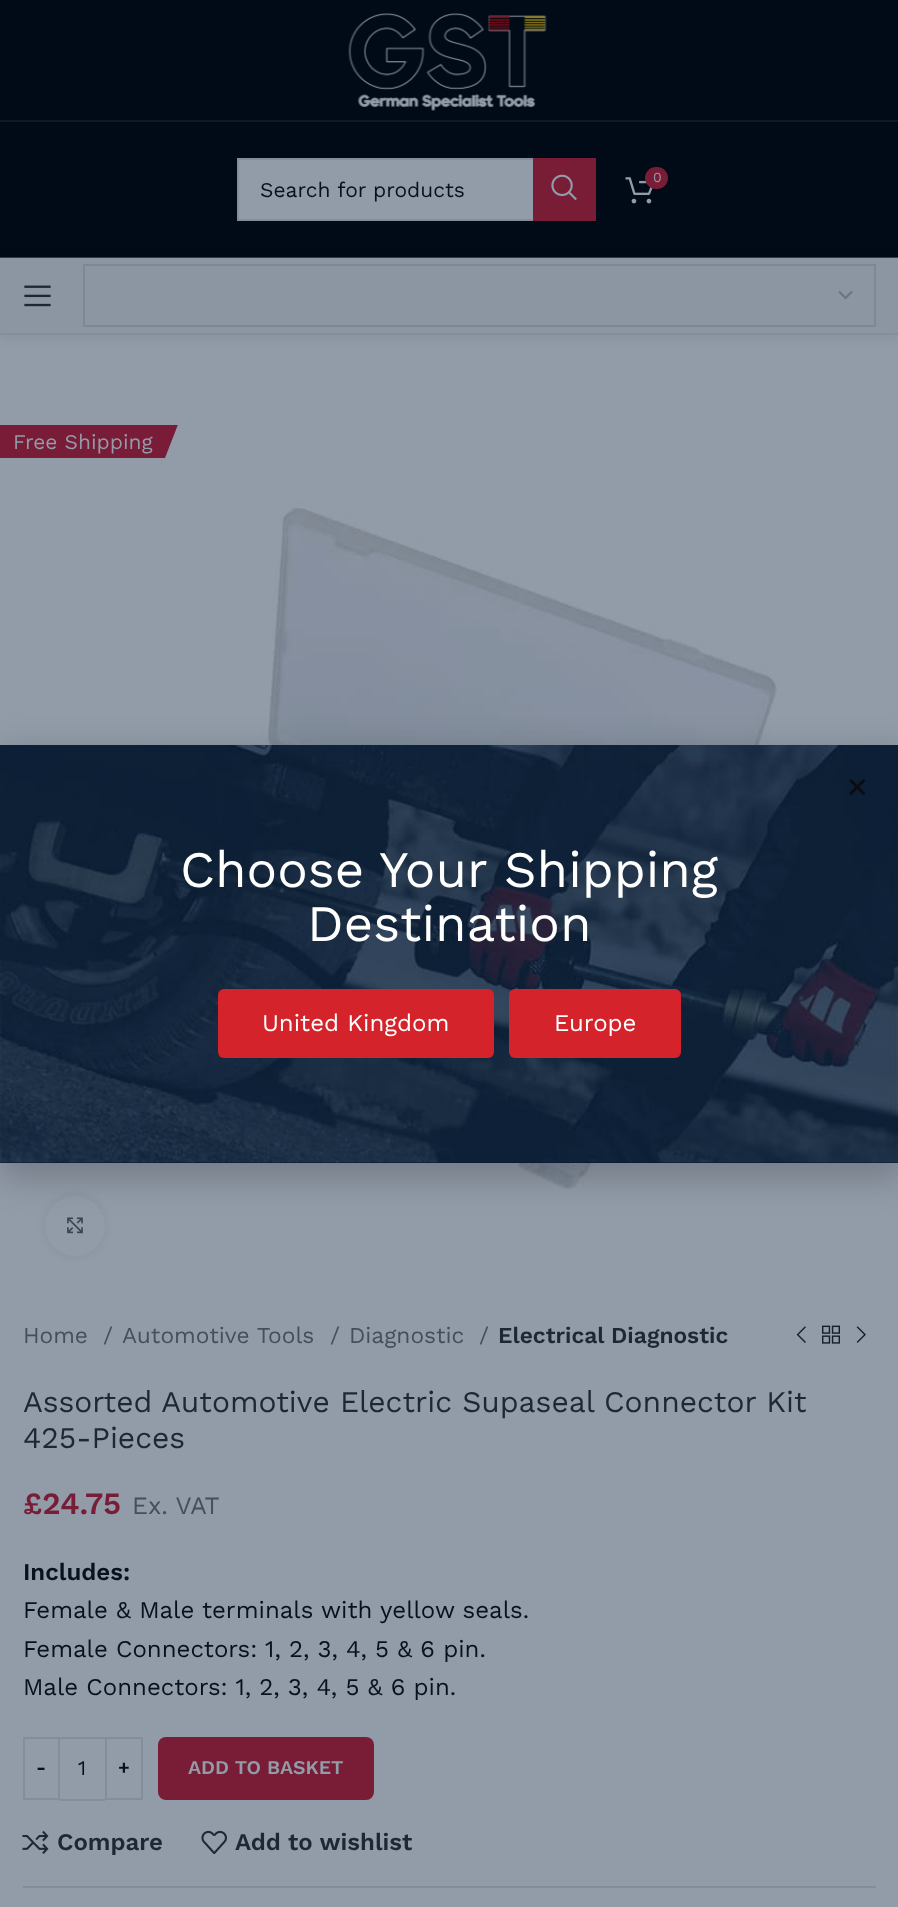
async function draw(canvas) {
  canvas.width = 898;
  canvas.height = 1907;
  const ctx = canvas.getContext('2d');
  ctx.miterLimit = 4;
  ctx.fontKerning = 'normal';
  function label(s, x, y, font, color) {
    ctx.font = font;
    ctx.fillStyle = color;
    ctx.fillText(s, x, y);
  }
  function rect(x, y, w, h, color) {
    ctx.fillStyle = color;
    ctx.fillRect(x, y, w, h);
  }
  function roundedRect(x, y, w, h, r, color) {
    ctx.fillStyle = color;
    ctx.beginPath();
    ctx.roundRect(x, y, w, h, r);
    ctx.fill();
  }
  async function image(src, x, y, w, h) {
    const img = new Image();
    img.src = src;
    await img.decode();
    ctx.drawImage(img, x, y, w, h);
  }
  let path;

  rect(0, 0, 898, 1907, '#929ca9');
  rect(0, 0, 898, 120, '#000b17');
  rect(0, 120, 898, 2, '#0f1a25');
  await image('assets/img1.png', 348, 13, 199, 98);
  rect(0, 122, 898, 135, '#000b17');
  rect(0, 257, 898, 1, '#791d37');
  await image('assets/img2.png', 625, 177, 28, 27);
  roundedRect(645, 167, 23, 22, 11, '#791d37');
  label('0', 653, 182, '14px Work Sans', '#929ca9');
  rect(239, 160, 294, 59, '#929ca9');
  ctx.strokeStyle = '#848e9a';
  ctx.lineWidth = 2;
  ctx.strokeRect(238, 159, 357, 61);
  label('Search for products', 260, 197, '21px Work Sans', '#07121e');
  rect(533, 158, 63, 63, '#791d37');
  await image('assets/img3.png', 551, 174, 26, 27);
  ctx.fillStyle = '#000b171a';
  ctx.filter = 'blur(6px)';
  ctx.beginPath();
  ctx.rect(0, 260, 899, 76);
  ctx.fill();
  ctx.filter = 'none';
  rect(0, 258, 898, 75, '#8c96a2');
  rect(0, 333, 898, 2, '#858f9b');
  await image('assets/img4.png', 24, 285, 27, 22);
  path = new Path2D('M839 291.5L845.5 298L852 291.5');
  ctx.strokeStyle = '#6b7582';
  ctx.lineWidth = 2.2;
  ctx.stroke(path);
  ctx.strokeStyle = '#7e8895';
  ctx.lineWidth = 2;
  ctx.strokeRect(84, 265, 791, 61);
  rect(0, 425, 165, 33, '#791c37');
  label('Free Shipping', 13, 449, '21px Work Sans', '#929ca9');
  ctx.save();
  ctx.beginPath();
  ctx.rect(165, 425, 14, 33);
  ctx.clip();
  ctx.fillStyle = '#791c37';
  path = new Path2D('M165 424.5H178L165 458Z');
  ctx.fill(path);
  ctx.restore();
  await image('assets/img5.png', 119, 501, 661, 689);
  ctx.fillStyle = '#000b1714';
  ctx.filter = 'blur(4px)';
  ctx.beginPath();
  ctx.roundRect(45, 1196, 60, 60, 30);
  ctx.fill();
  ctx.filter = 'none';
  ctx.fillStyle = '#929ca9';
  ctx.beginPath();
  ctx.arc(75, 1226, 30, 0, 2 * Math.PI);
  ctx.fill();
  await image('assets/img6.png', 67, 1217, 16, 17);
  label('Home', 23, 1343, '22.75px Work Sans', '#444f5b');
  label('/', 103, 1343, '22.75px Work Sans', '#444f5b');
  label('Automotive Tools', 122, 1343, '22.75px Work Sans', '#444f5b');
  label('/', 330, 1343, '22.75px Work Sans', '#444f5b');
  label('Diagnostic', 349, 1343, '22.75px Work Sans', '#444f5b');
  label('/', 479, 1343, '22.75px Work Sans', '#444f5b');
  label('Electrical Diagnostic', 498, 1343, '600 22.75px Work Sans', '#1e2834');
  await image('assets/img7.png', 796, 1326, 10, 17);
  await image('assets/img8.png', 822, 1325, 18, 19);
  await image('assets/img9.png', 856, 1326, 10, 17);
  label('Assorted Automotive Electric Supaseal Connector Kit', 23, 1412, '30px Work Sans', '#1e2834');
  label('425-Pieces', 23, 1448, '30px Work Sans', '#1e2834');
  label('£24.75', 23, 1514, '600 31px Work Sans', '#791d37');
  label('Ex. VAT', 132, 1514, '25px Work Sans', '#444f5b');
  label('Includes:', 23, 1580, '600 24px Work Sans', '#07121e');
  label('Female & Male terminals with yellow seals.', 23, 1618, '24px Work Sans', '#07121e');
  label('Female Connectors: 1, 2, 3, 4, 5 & 6 pin.', 23, 1657, '24px Work Sans', '#07121e');
  label('Male Connectors: 1, 2, 3, 4, 5 & 6 pin.', 23, 1695, '24px Work Sans', '#07121e');
  ctx.strokeStyle = '#848e9a';
  ctx.strokeRect(24, 1738, 35, 61);
  label('-', 36, 1774, '600 19.5px Work Sans', '#07121e');
  rect(60, 1737, 45, 2, '#848e9a');
  rect(60, 1799, 45, 2, '#848e9a');
  label('1', 78, 1775, '21px Work Sans', '#07121e');
  ctx.strokeRect(106, 1738, 36, 61);
  label('+', 118, 1774, '600 19.5px Work Sans', '#07121e');
  roundedRect(158, 1737, 216, 63, 8, '#791d37');
  label('ADD TO BASKET', 188, 1774, '600 19.5px Work Sans', '#929ca9');
  await image('assets/img10.png', 22, 1830, 27, 24);
  label('Compare', 57, 1850, '600 24px Work Sans', '#1e2834');
  await image('assets/img11.png', 201, 1830, 26, 24);
  label('Add to wishlist', 235, 1850, '600 24px Work Sans', '#1e2834');
  rect(23, 1886, 853, 2, '#828d99');
  ctx.fillStyle = '#00000033';
  ctx.filter = 'blur(17px)';
  ctx.beginPath();
  ctx.rect(-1, 753, 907, 426);
  ctx.fill();
  ctx.filter = 'none';
  rect(0, 1162, 898, 1, '#011936');
  await image('assets/img12.png', 0, 745, 898, 418);
  await image('assets/img13.png', 849, 779, 17, 16);
  label('Choose Your Shipping', 180, 887, '51px Work Sans', '#fff');
  label('Destination', 307, 941, '51px Work Sans', '#fff');
  roundedRect(218, 989, 276, 69, 6, '#d4232b');
  label('United Kingdom', 262, 1031, '24px Work Sans', '#fff');
  roundedRect(509, 989, 172, 69, 6, '#d4232b');
  label('Europe', 554, 1031, '24px Work Sans', '#fff');
}

draw(document.querySelector('canvas'));
